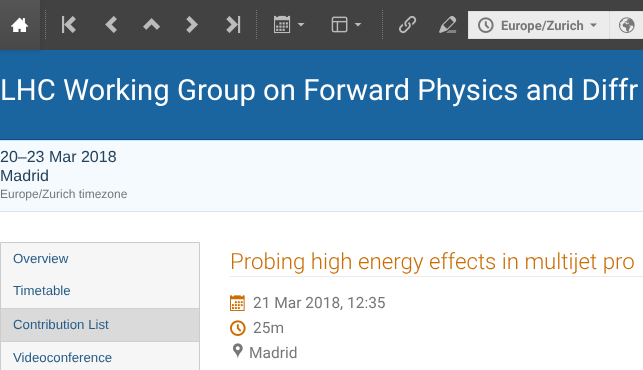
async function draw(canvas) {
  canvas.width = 643;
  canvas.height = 370;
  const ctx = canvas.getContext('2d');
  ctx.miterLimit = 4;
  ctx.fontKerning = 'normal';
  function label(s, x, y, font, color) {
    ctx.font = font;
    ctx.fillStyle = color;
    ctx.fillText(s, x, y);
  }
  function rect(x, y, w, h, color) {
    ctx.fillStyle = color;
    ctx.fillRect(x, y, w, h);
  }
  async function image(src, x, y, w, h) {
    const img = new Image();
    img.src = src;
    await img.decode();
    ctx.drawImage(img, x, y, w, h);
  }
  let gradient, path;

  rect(0, 0, 643, 370, '#fff');
  rect(40, 0, 603, 50, '#424242');
  rect(0, 50, 643, 89, '#1a64a0');
  ctx.fillStyle = '#1414141a';
  ctx.filter = 'blur(2px)';
  ctx.beginPath();
  ctx.rect(1, 1, 40, 50);
  ctx.fill();
  ctx.filter = 'none';
  gradient = ctx.createLinearGradient(20, 0, 20, 50);
  gradient.addColorStop(0, '#555');
  gradient.addColorStop(1, '#484848');
  ctx.fillStyle = gradient;
  ctx.fillRect(0, 0, 40, 50);
  await image('assets/img1.png', 11, 17, 18, 15);
  path = new Path2D('M45.5 10V40');
  ctx.strokeStyle = '#777';
  ctx.setLineDash([1, 1]);
  ctx.stroke(path);
  await image('assets/img2.png', 62, 15, 14, 19);
  await image('assets/img3.png', 105, 16, 12, 17);
  await image('assets/img4.png', 143, 18, 17, 12);
  await image('assets/img5.png', 186, 16, 12, 17);
  await image('assets/img6.png', 226, 15, 15, 19);
  path = new Path2D('M256.5 10V40');
  ctx.stroke(path);
  await image('assets/img7.png', 274, 15, 17, 19);
  ctx.fillStyle = '#bbb';
  path = new Path2D('M297.5 23L301 26.5L304.5 23Z');
  ctx.fill(path);
  await image('assets/img8.png', 331, 16, 17, 17);
  path = new Path2D('M354.5 23L358 26.5L361.5 23Z');
  ctx.fill(path);
  path = new Path2D('M382.5 10V40');
  ctx.stroke(path);
  await image('assets/img9.png', 399, 15, 18, 19);
  await image('assets/img10.png', 439, 16, 18, 17);
  rect(469, 12, 140, 26, '#ececec');
  rect(468, 11, 141, 1, '#dfdfdf');
  rect(468, 38, 141, 1, '#dfdfdf');
  rect(468, 11, 1, 28, '#dfdfdf');
  await image('assets/img11.png', 478, 17, 16, 16);
  label('Europe/Zurich', 501, 30, 'bold 13px Roboto', '#777');
  path = new Path2D('M590 23.5L593.5 27L597 23.5Z');
  ctx.fill(path);
  ctx.fillStyle = '#ececec';
  ctx.beginPath();
  ctx.rect(609.5, 11.5, 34, 27);
  ctx.fill();
  ctx.strokeStyle = '#dfdfdf';
  ctx.setLineDash([]);
  ctx.stroke();
  await image('assets/img12.png', 619, 17, 16, 16);
  rect(0, 139, 643, 1, '#0f4c80');
  label('LHC Working Group on Forward Physics and Diffr', 0, 100, '29.3px Roboto', '#fff');
  rect(0, 141, 643, 70, '#f5faff');
  rect(0, 140, 643, 1, '#d5e4f1');
  rect(0, 211, 643, 1, '#d5e4f1');
  label('20–23 Mar 2018', 0, 162, '16px Liberation Sans', '#24425a');
  label('Madrid', 0, 181, '16px Liberation Sans', '#24425a');
  label('Europe/Zurich timezone', 0, 198, '12px Liberation Sans', '#777');
  ctx.fillStyle = '#f6f6f6';
  ctx.beginPath();
  ctx.rect(0.5, 242.5, 199, 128);
  ctx.fill();
  ctx.strokeStyle = '#ccc';
  ctx.stroke();
  label('Overview', 13, 263, '13.25px "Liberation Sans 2"', '#275c86');
  label('Timetable', 13, 295, '13.25px "Liberation Sans 2"', '#275c86');
  rect(1, 309, 198, 32, '#dadada');
  rect(1, 308, 198, 1, '#d0d0d0');
  rect(1, 341, 198, 1, '#d0d0d0');
  label('Contribution List', 13, 329, '13.25px "Liberation Sans 2"', '#275c86');
  label('Videoconference', 13, 362, '13.25px "Liberation Sans 2"', '#275c86');
  rect(230, 276, 413, 1, '#ebebeb');
  label('Probing high energy effects in multijet pro', 230, 269, '300 22.25px Roboto', '#cb6d04');
  await image('assets/img13.png', 230, 295, 15, 16);
  label('21 Mar 2018, 12:35', 253, 308, '15.5px Roboto', '#777');
  await image('assets/img14.png', 230, 320, 16, 16);
  label('25m', 253, 333, '15.5px Roboto', '#777');
  await image('assets/img15.png', 232, 343, 11, 16);
  label('Madrid', 249, 358, '15.5px Roboto', '#777');
}

draw(document.querySelector('canvas'));
